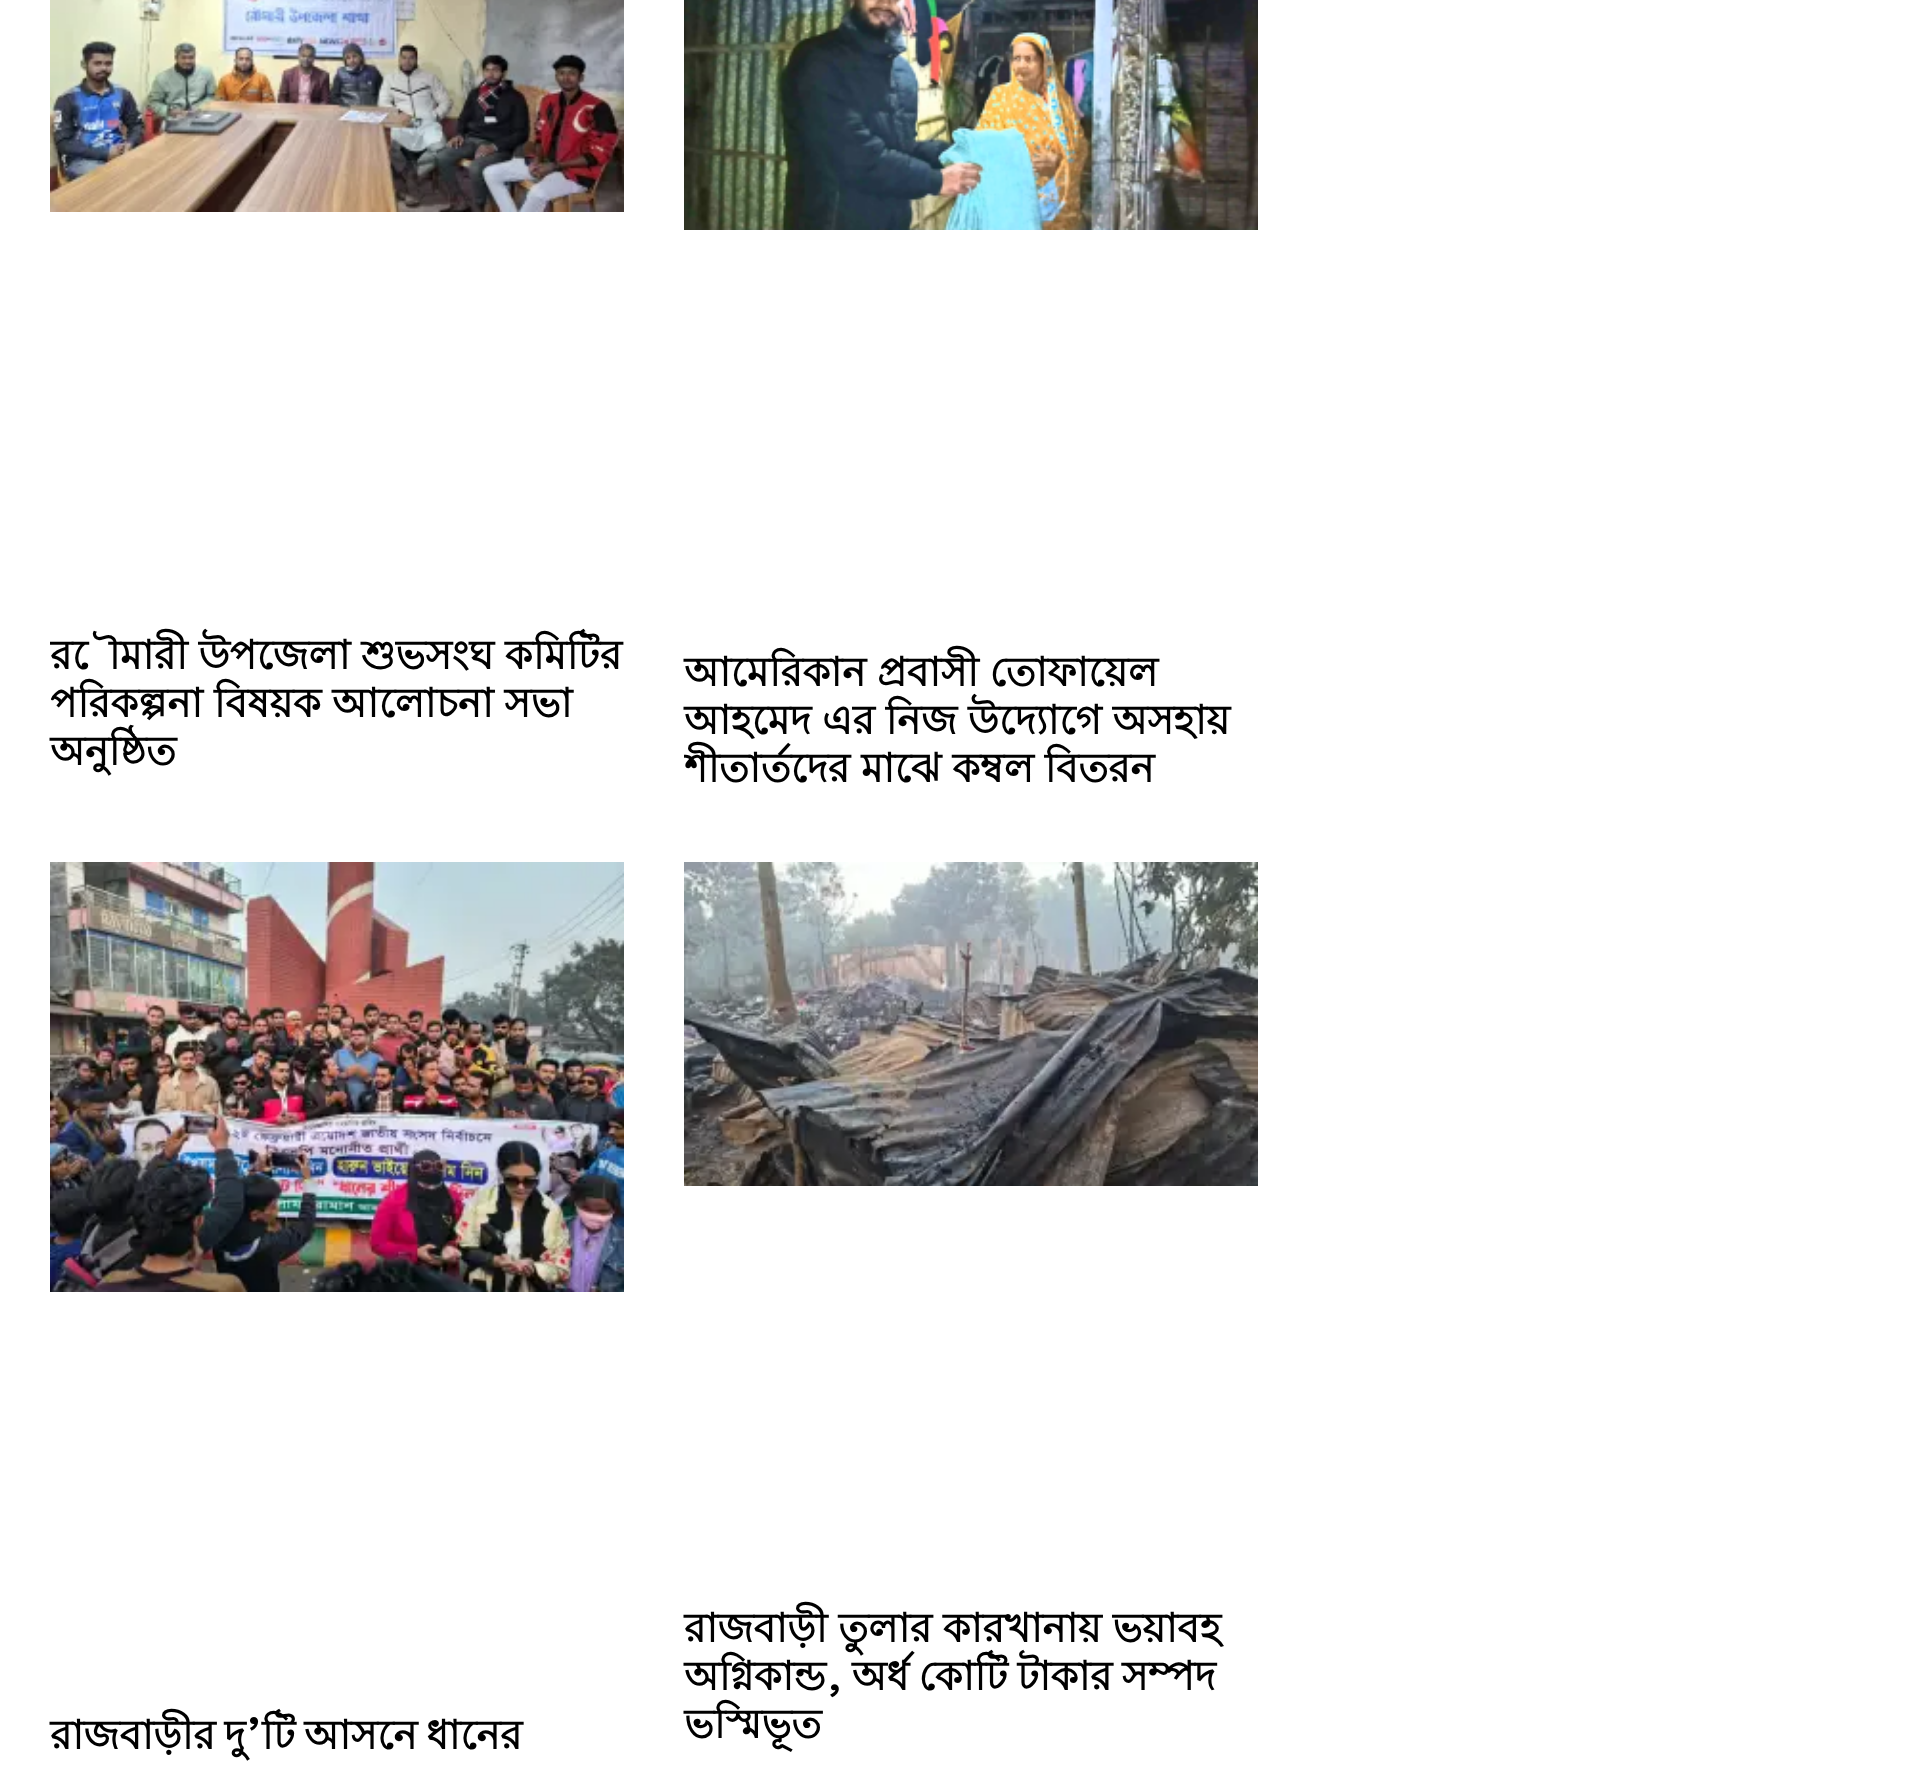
async function draw(canvas) {
  canvas.width = 1932;
  canvas.height = 1783;
  const ctx = canvas.getContext('2d');
  ctx.miterLimit = 4;
  ctx.fontKerning = 'normal';
  function label(s, x, y, font, color) {
    ctx.font = font;
    ctx.fillStyle = color;
    ctx.fillText(s, x, y);
  }
  function rect(x, y, w, h, color) {
    ctx.fillStyle = color;
    ctx.fillRect(x, y, w, h);
  }
  async function image(src, x, y, w, h) {
    const img = new Image();
    img.src = src;
    await img.decode();
    ctx.drawImage(img, x, y, w, h);
  }

  rect(0, 0, 1932, 1783, '#fff');
  await image('assets/img1.png', 50, 0, 574, 212);
  ctx.save();
  ctx.beginPath();
  ctx.rect(50, 0, 574, 792);
  ctx.clip();
  label('রৌমারী উপজেলা শুভসংঘ কমিটির', 50, 669, 'bold 40px Lohit Bengali', '#000');
  ctx.restore();
  label('পরিকল্পনা বিষয়ক আলোচনা সভা', 50, 717, 'bold 40px Lohit Bengali', '#000');
  label('অনুষ্ঠিত', 50, 765, 'bold 40px Lohit Bengali', '#000');
  await image('assets/img2.png', 684, 0, 574, 230);
  label('আমেরিকান প্রবাসী তোফায়েল', 684, 686, 'bold 40px Lohit Bengali', '#000');
  label('আহমেদ এর নিজ উদ্যোগে অসহায়', 684, 734, 'bold 40px Lohit Bengali', '#000');
  ctx.save();
  ctx.beginPath();
  ctx.rect(684, 0, 574, 792);
  ctx.clip();
  label('শীতার্তদের মাঝে কম্বল বিতরন', 684, 782, 'bold 40px Lohit Bengali', '#000');
  ctx.restore();
  await image('assets/img3.png', 50, 862, 574, 430);
  ctx.wordSpacing = '-2px';
  label('রাজবাড়ীর দু’টি আসনে ধানের', 50, 1749, 'bold 40px Lohit Bengali', '#000');
  await image('assets/img4.png', 684, 862, 574, 324);
  ctx.wordSpacing = '0px';
  label('রাজবাড়ী তুলার কারখানায় ভয়াবহ', 684, 1642, 'bold 40px Lohit Bengali', '#000');
  ctx.wordSpacing = '-1.5px';
  label('অগ্নিকান্ড, অর্ধ কোটি টাকার সম্পদ', 684, 1690, 'bold 40px Lohit Bengali', '#000');
  ctx.wordSpacing = '0px';
  label('ভস্মিভূত', 684, 1738, 'bold 40px Lohit Bengali', '#000');
}

draw(document.querySelector('canvas'));
